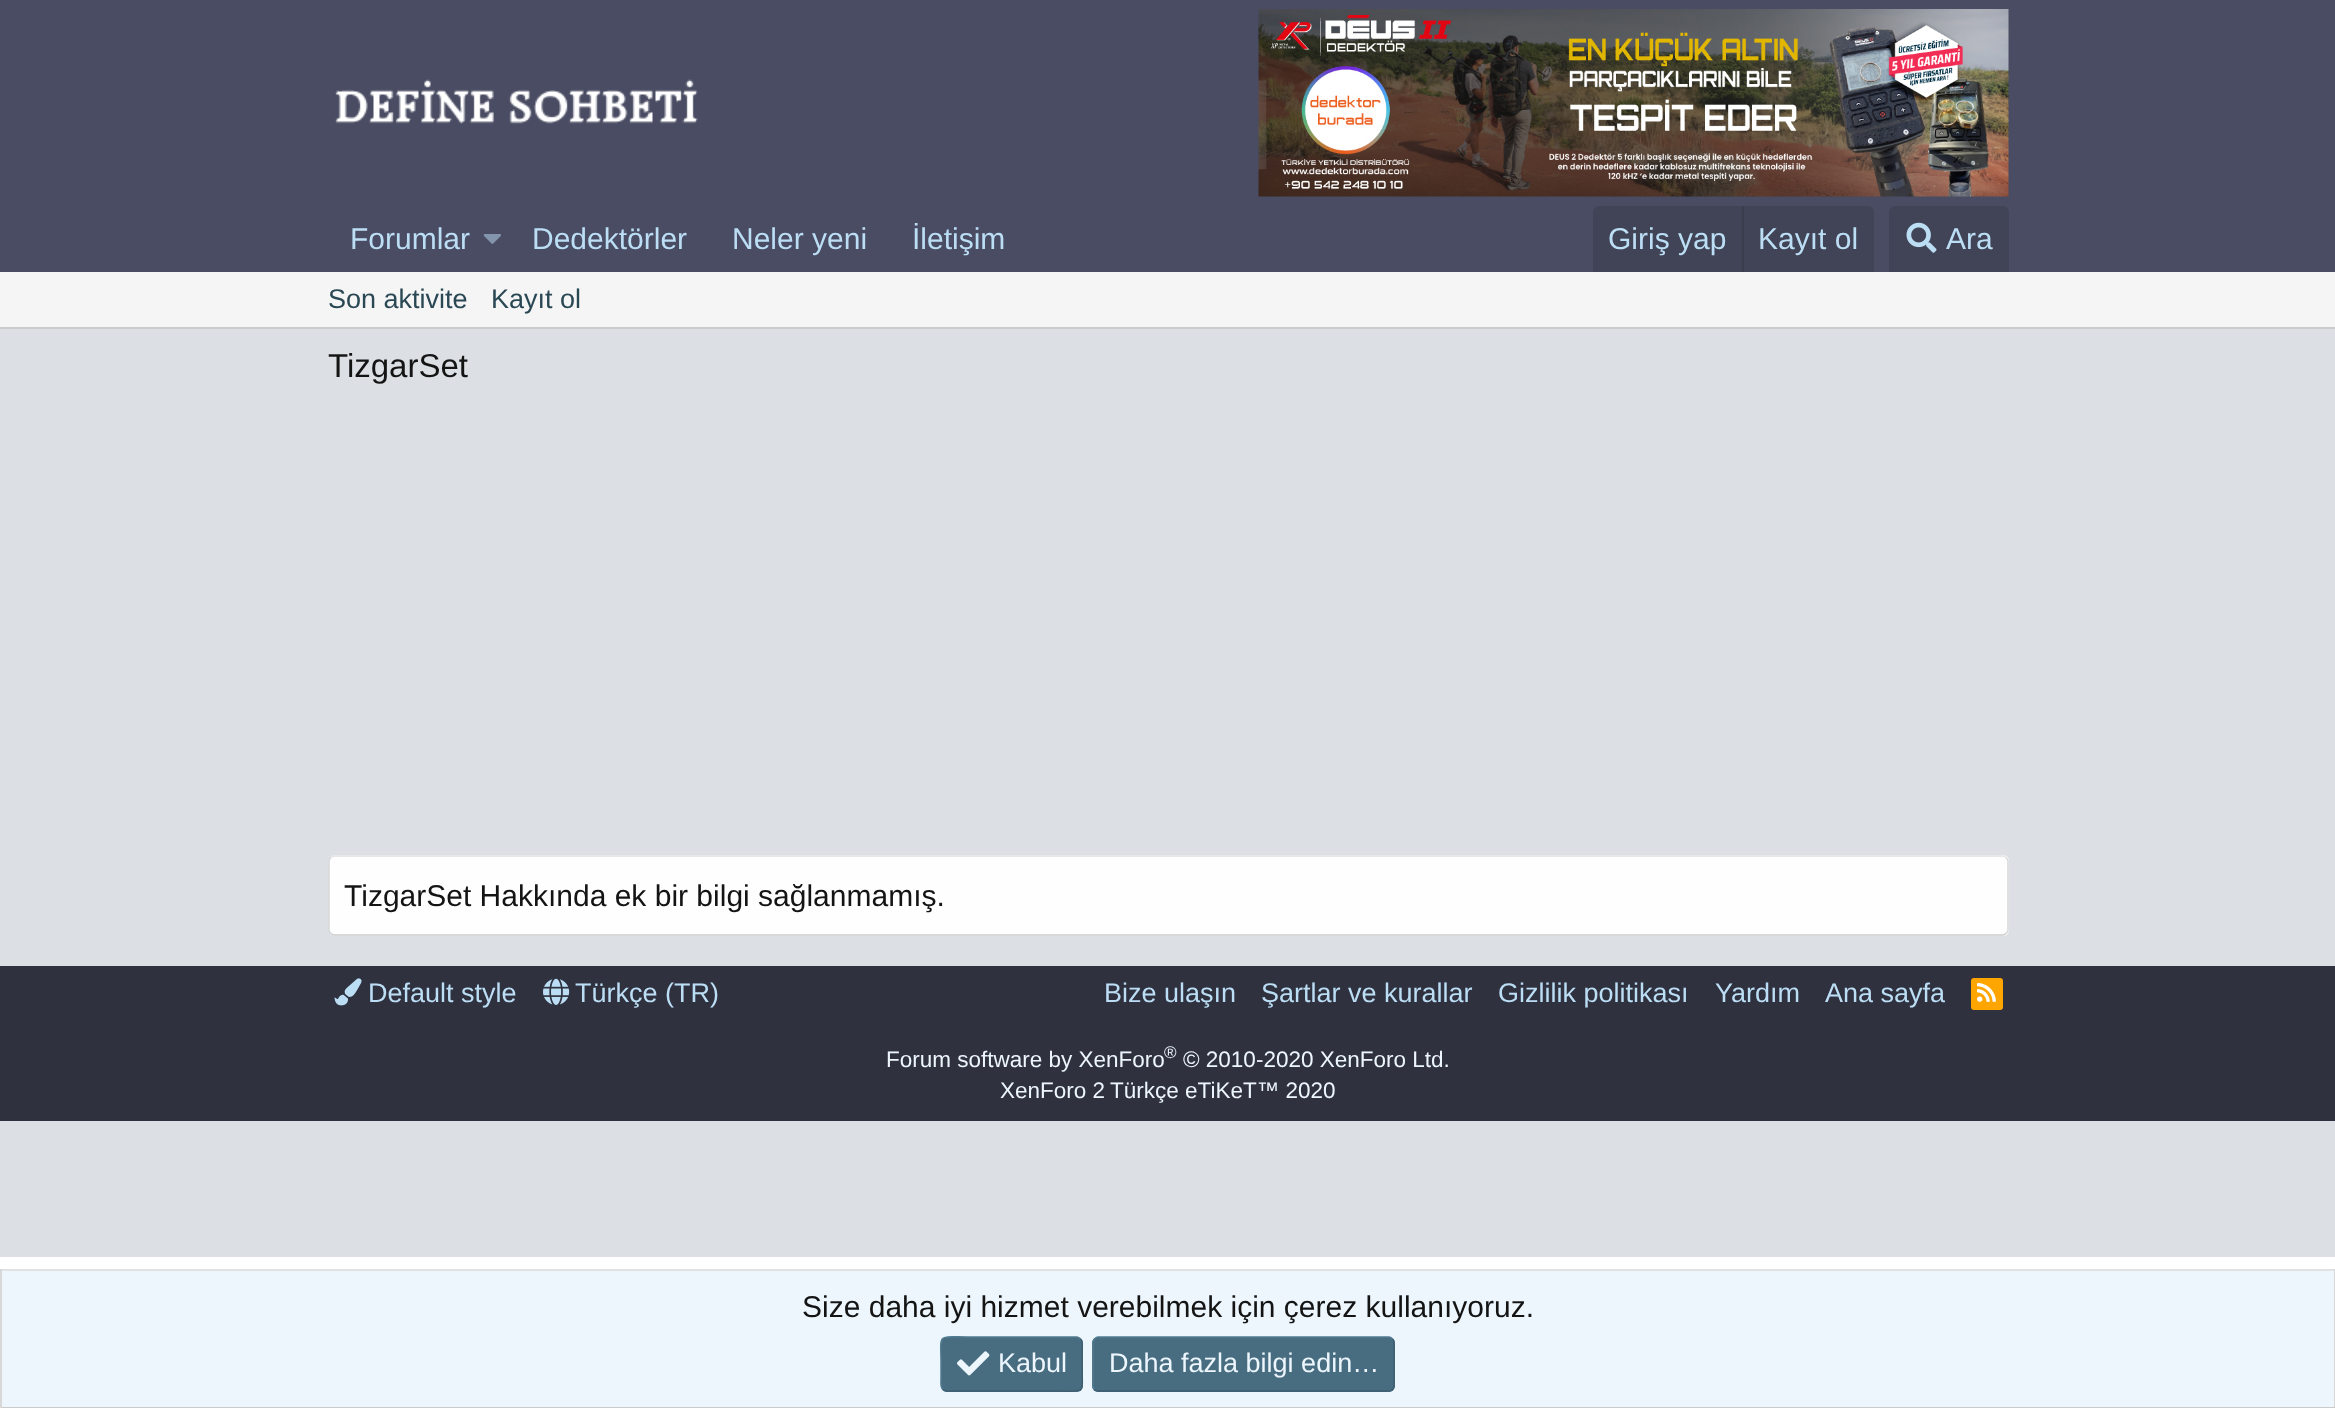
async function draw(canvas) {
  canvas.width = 2335;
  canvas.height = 1408;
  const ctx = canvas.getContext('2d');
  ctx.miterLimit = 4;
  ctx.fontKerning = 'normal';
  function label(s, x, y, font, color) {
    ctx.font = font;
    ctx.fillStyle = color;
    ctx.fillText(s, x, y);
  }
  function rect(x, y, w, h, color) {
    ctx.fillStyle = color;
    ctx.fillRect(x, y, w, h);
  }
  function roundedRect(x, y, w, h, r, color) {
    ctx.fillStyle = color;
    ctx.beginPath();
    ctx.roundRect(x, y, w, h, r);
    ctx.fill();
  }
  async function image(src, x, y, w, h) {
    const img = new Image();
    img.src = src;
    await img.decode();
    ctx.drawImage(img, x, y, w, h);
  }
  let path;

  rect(0, 0, 2335, 1408, '#fff');
  rect(0, 329, 2335, 928, '#dce0e4');
  rect(0, 0, 2335, 272, '#494c62');
  await image('assets/img1.png', 335, 79, 363, 45);
  await image('assets/img2.png', 1258, 9, 751, 188);
  label('Forumlar', 350, 249, '30px Liberation Sans', '#bcdef5');
  await image('assets/img3.png', 483, 234, 18, 10);
  label('Dedektörler', 532, 249, '30px Liberation Sans', '#bcdef5');
  label('Neler yeni', 732, 249, '30px Liberation Sans', '#bcdef5');
  label('İletişim', 912, 249, '30px Liberation Sans', '#bcdef5');
  ctx.fillStyle = '#414456';
  ctx.beginPath();
  ctx.roundRect(1593, 206, 281, 66, [6, 6, 0, 0]);
  ctx.fill();
  label('Giriş yap', 1608, 249, '30px Liberation Sans', '#bcdef5');
  rect(1742, 206, 2, 66, '#3a3d4c');
  label('Kayıt ol', 1758, 249, '30px Liberation Sans', '#bcdef5');
  ctx.fillStyle = '#414456';
  ctx.beginPath();
  ctx.roundRect(1889, 206, 120, 66, [6, 6, 0, 0]);
  ctx.fill();
  await image('assets/img4.png', 1906, 222, 31, 31);
  label('Ara', 1946, 249, '30px Liberation Sans', '#bcdef5');
  rect(0, 272, 2335, 55, '#f5f5f5');
  rect(0, 327, 2335, 2, '#cbcbcb');
  label('Son aktivite', 328, 308, '27px Liberation Sans', '#2a4754');
  label('Kayıt ol', 491, 308, '27px Liberation Sans', '#2a4754');
  label('TizgarSet', 328, 377, '33px Liberation Sans', '#141414');
  roundedRect(329, 855, 1680, 81, 6, '#fefefe');
  path = new Path2D('M331 857.5C332 856.5 333 856 334.5 856H2002.5C2004 856 2005 856.5 2006 857.5');
  ctx.strokeStyle = '#e1e1e1';
  ctx.lineWidth = 1.5;
  ctx.stroke(path);
  path = new Path2D('M2006 857.5C2007 858.5 2008 859.5 2008 861V930C2008 931.5 2007 932.5 2006 933.5');
  ctx.strokeStyle = '#d8d8d8';
  ctx.stroke(path);
  path = new Path2D('M2006 933.5C2005 934.5 2004 935 2002.5 935H334.5C333 935 332 934.5 331 933.5');
  ctx.strokeStyle = '#cbcbcb';
  ctx.stroke(path);
  path = new Path2D('M331 933.5C330 932.5 329 931.5 329 930V861C329 859.5 330 858.5 331 857.5');
  ctx.strokeStyle = '#d8d8d8';
  ctx.stroke(path);
  label('TizgarSet Hakkında ek bir bilgi sağlanmamış.', 344, 906, '30px Liberation Sans', '#141414');
  rect(0, 966, 2335, 155, '#2f313f');
  await image('assets/img5.png', 334, 978, 28, 28);
  label('Default style', 368, 1002, '27px Liberation Sans', '#bcdef5');
  await image('assets/img6.png', 543, 978, 27, 27);
  label('Türkçe (TR)', 575, 1002, '27px Liberation Sans', '#bcdef5');
  label('Bize ulaşın', 1104, 1002, '27px Liberation Sans', '#bcdef5');
  label('Şartlar ve kurallar', 1261, 1002, '27px Liberation Sans', '#bcdef5');
  label('Gizlilik politikası', 1498, 1002, '27px Liberation Sans', '#bcdef5');
  label('Yardım', 1715, 1002, '27px Liberation Sans', '#bcdef5');
  label('Ana sayfa', 1825, 1002, '27px Liberation Sans', '#bcdef5');
  roundedRect(1971, 978, 32, 32, 3, '#ffa500');
  await image('assets/img7.png', 1977, 983, 19, 19);
  label('Forum software by XenForo', 886, 1067, '22.5px Liberation Sans', '#edf6fd');
  label('®', 1164, 1058, '17px Liberation Sans', '#edf6fd');
  label('© 2010-2020 XenForo Ltd.', 1183, 1067, '22.5px Liberation Sans', '#edf6fd');
  label('XenForo 2', 1000, 1098, '22.5px Liberation Sans', '#edf6fd');
  label('Türkçe eTiKeT™ 2020', 1110, 1098, '22.5px Liberation Sans', '#edf6fd');
  rect(2, 1271, 2332, 136, '#edf6fd');
  rect(0, 1269, 2335, 2, '#e1e1e1');
  rect(2334, 1269, 1, 139, '#d8d8d8');
  rect(0, 1407, 2335, 1, '#cbcbcb');
  rect(0, 1269, 2, 139, '#d8d8d8');
  label('Size daha iyi hizmet verebilmek için çerez kullanıyoruz.', 802, 1317, '30px Liberation Sans', '#141414');
  roundedRect(941, 1337, 142, 55, 6, '#486d80');
  path = new Path2D('M1080.5 1339C1083.5 1341.5 1082 1347 1082 1350V1364C1082 1396 1087.5 1391 1055 1391H946.5C945 1391 944 1390.5 943 1389.5');
  ctx.strokeStyle = '#3f5f70';
  ctx.stroke(path);
  path = new Path2D('M943 1389.5C940 1387 941 1381.5 941 1379V1364C941 1332.5 936 1337 968 1337H1077C1078.5 1337.5 1079.5 1338 1080.5 1339');
  ctx.strokeStyle = '#517b90';
  ctx.stroke(path);
  await image('assets/img8.png', 957, 1351, 33, 25);
  label('Kabul', 998, 1372, '27px Liberation Sans', '#edf6fd');
  roundedRect(1092, 1337, 303, 55, 6, '#486d80');
  path = new Path2D('M1392.5 1339C1393.5 1340 1394 1341 1394 1342.5V1386C1394 1387.5 1393.5 1388.5 1392.5 1389.5C1391.5 1390.5 1390.5 1391 1389 1391H1098C1096.5 1391 1095.5 1390.5 1094.5 1389.5');
  ctx.strokeStyle = '#3f5f70';
  ctx.stroke(path);
  path = new Path2D('M1094.5 1389.5C1093.5 1388.5 1093 1387.5 1093 1386V1342.5C1093 1341 1093.5 1340 1094.5 1339C1095.5 1338 1096.5 1337 1098 1337H1389C1390.5 1337 1391.5 1338 1392.5 1339');
  ctx.strokeStyle = '#517b90';
  ctx.stroke(path);
  label('Daha fazla bilgi edin…', 1109, 1372, '27px Liberation Sans', '#edf6fd');
}

draw(document.querySelector('canvas'));
